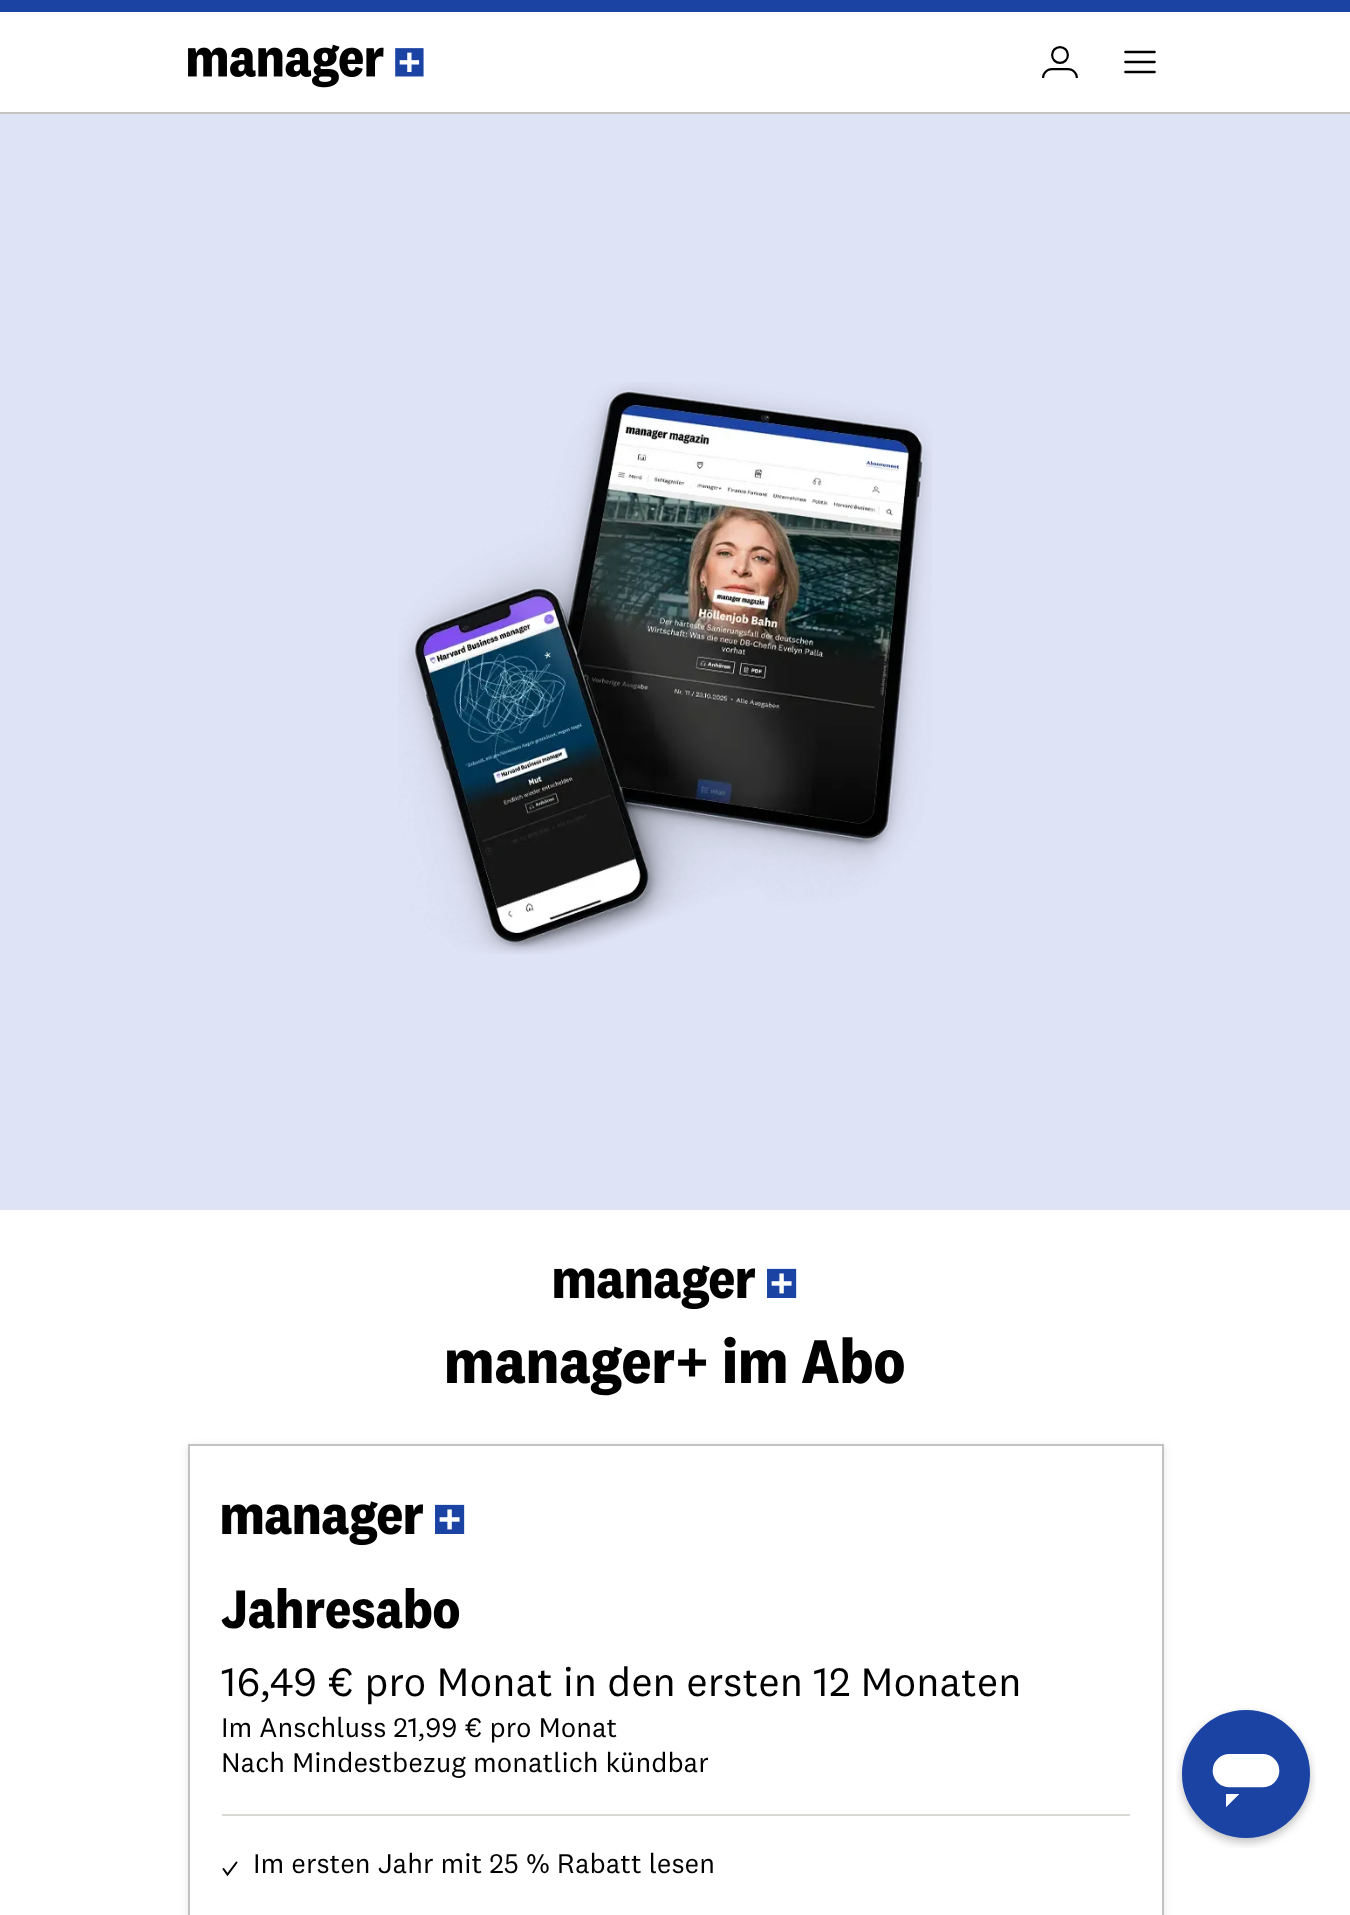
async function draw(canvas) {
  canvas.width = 1350;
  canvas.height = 1915;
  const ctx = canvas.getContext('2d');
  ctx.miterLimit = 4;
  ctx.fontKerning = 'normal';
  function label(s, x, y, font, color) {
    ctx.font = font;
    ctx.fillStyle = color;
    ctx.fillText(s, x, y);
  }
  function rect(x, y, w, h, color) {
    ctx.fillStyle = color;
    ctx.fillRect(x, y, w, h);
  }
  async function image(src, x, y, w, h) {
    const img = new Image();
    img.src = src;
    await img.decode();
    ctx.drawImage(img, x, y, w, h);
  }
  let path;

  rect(0, 0, 1350, 1915, '#fff');
  rect(0, 0, 1350, 12, '#1b43a4');
  rect(0, 112, 1350, 2, '#c4c2c0');
  await image('assets/img1.png', 188, 44, 236, 44);
  await image('assets/img2.png', 1042, 46, 36, 32);
  path = new Path2D('M1154.5 52H1125.5M1154.5 62H1125.5M1154.5 72H1125.5');
  ctx.strokeStyle = '#000';
  ctx.lineWidth = 2.6;
  ctx.lineCap = 'round';
  ctx.stroke(path);
  rect(0, 114, 1350, 1096, '#dee3f5');
  await image('assets/img3.png', 398, 382, 534, 572);
  await image('assets/img4.png', 554, 1265, 243, 45);
  label('manager+ im Abo', 444, 1383, 'bold 64px "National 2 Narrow"', '#000');
  ctx.save();
  path = new Path2D('M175 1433H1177V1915H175ZM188 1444H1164V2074H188Z');
  ctx.clip(path, 'evenodd');
  ctx.fillStyle = '#0000001a';
  ctx.filter = 'blur(4px)';
  ctx.beginPath();
  ctx.rect(188, 1446, 976, 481);
  ctx.fill();
  ctx.filter = 'none';
  ctx.restore();
  ctx.strokeStyle = '#c4c2c0';
  ctx.lineWidth = 2;
  ctx.strokeRect(189, 1445, 974, 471);
  await image('assets/img4.png', 222, 1501, 243, 45);
  label('Jahresabo', 221, 1628, 'bold 56px "National 2 Narrow"', '#000');
  label('16,49 € pro Monat in den ersten 12 Monaten', 221, 1696, '41.25px "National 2"', '#000');
  label('Im Anschluss 21,99 € pro Monat', 221, 1737, '28px "National 2"', '#000');
  label('Nach Mindestbezug monatlich kündbar', 221, 1772, '28px "National 2"', '#000');
  rect(222, 1814, 908, 2, '#dad8d5');
  path = new Path2D('M236.5 1862.5L227.5 1874.5L223.5 1869');
  ctx.strokeStyle = '#000';
  ctx.stroke(path);
  label('Im ersten Jahr mit 25 % Rabatt lesen', 253, 1873, '28px "National 2"', '#000');
  await image('assets/img5.png', 1176, 1708, 140, 140);
}

draw(document.querySelector('canvas'));
